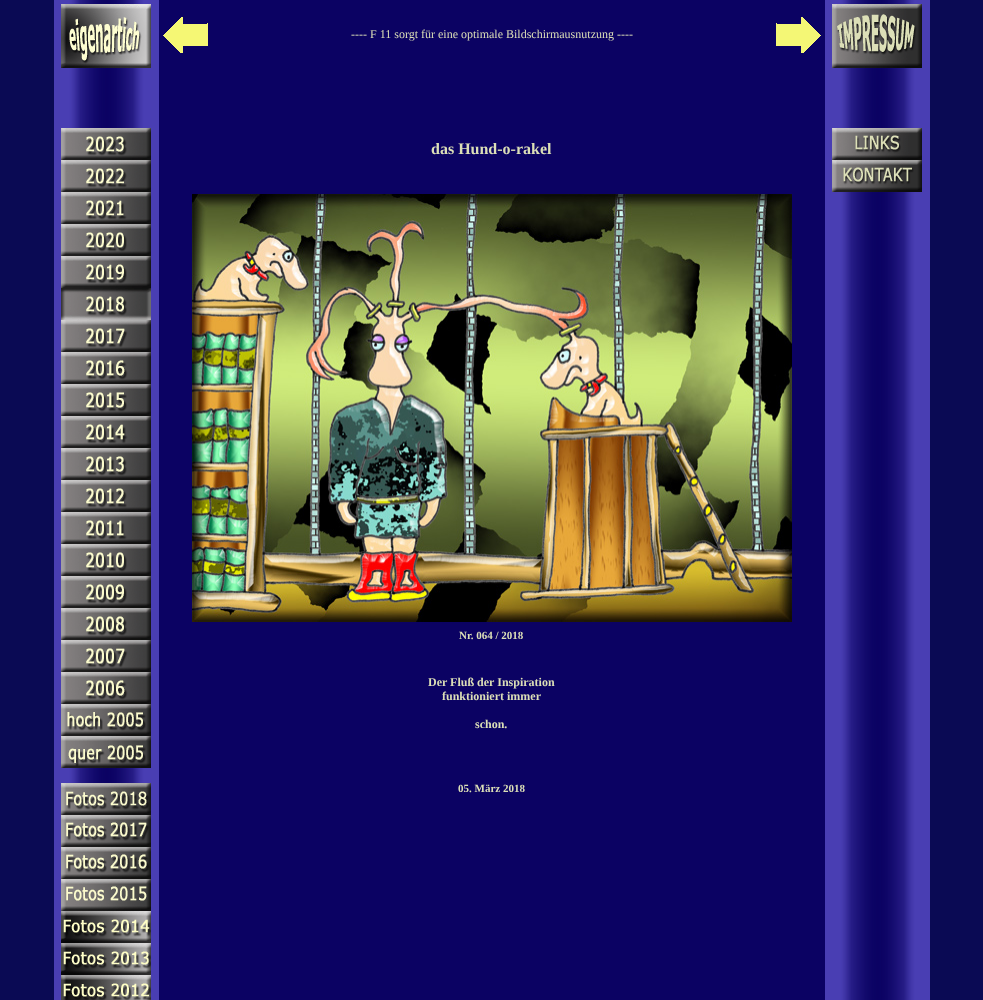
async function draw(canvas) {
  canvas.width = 983;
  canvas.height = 1000;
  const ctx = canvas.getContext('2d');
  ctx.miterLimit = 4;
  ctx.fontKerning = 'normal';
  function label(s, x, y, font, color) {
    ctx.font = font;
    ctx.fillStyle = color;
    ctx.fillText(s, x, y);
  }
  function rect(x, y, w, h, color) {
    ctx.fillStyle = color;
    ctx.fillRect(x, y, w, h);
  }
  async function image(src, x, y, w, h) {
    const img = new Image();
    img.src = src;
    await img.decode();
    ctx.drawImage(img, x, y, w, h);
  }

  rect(0, 0, 983, 1000, '#0a0a54');
  await image('assets/img1.png', 54, 0, 105, 1000);
  await image('assets/img2.png', 61, 4, 90, 64);
  await image('assets/img3.png', 61, 128, 90, 32);
  await image('assets/img4.png', 61, 160, 90, 32);
  await image('assets/img5.png', 61, 192, 90, 32);
  await image('assets/img6.png', 61, 224, 90, 32);
  await image('assets/img7.png', 61, 256, 90, 32);
  await image('assets/img8.png', 61, 288, 90, 32);
  await image('assets/img9.png', 61, 320, 90, 32);
  await image('assets/img10.png', 61, 352, 90, 32);
  await image('assets/img11.png', 61, 384, 90, 32);
  await image('assets/img12.png', 61, 416, 90, 32);
  await image('assets/img13.png', 61, 448, 90, 32);
  await image('assets/img14.png', 61, 480, 90, 32);
  await image('assets/img15.png', 61, 512, 90, 32);
  await image('assets/img16.png', 61, 544, 90, 32);
  await image('assets/img17.png', 61, 576, 90, 32);
  await image('assets/img18.png', 61, 608, 90, 32);
  await image('assets/img19.png', 61, 640, 90, 32);
  await image('assets/img20.png', 61, 672, 90, 32);
  await image('assets/img21.png', 61, 704, 90, 32);
  await image('assets/img22.png', 61, 736, 90, 32);
  await image('assets/img23.png', 61, 783, 90, 32);
  await image('assets/img24.png', 61, 815, 90, 32);
  await image('assets/img25.png', 61, 847, 90, 32);
  await image('assets/img26.png', 61, 879, 90, 32);
  await image('assets/img27.png', 61, 911, 90, 32);
  await image('assets/img28.png', 61, 943, 90, 32);
  await image('assets/img29.png', 61, 975, 90, 25);
  rect(159, 0, 666, 1000, '#0b0263');
  await image('assets/img30.png', 163, 17, 45, 36);
  label('---- F 11 sorgt für eine optimale Bildschirmausnutzung ----', 351, 38, '12px Liberation Serif', '#dcdfb7');
  await image('assets/img31.png', 776, 17, 45, 36);
  await image('assets/img1.png', 825, 0, 105, 1000);
  await image('assets/img32.png', 832, 4, 90, 64);
  await image('assets/img33.png', 832, 128, 90, 32);
  await image('assets/img34.png', 832, 160, 90, 32);
  label('das Hund-o-rakel', 431, 154, 'bold 16px Liberation Serif', '#dcdfb7');
  await image('assets/img35.png', 192, 194, 600, 428);
  label('Nr. 064 / 2018', 459, 639, 'bold 11px Liberation Serif', '#dcdfb7');
  label('Der Fluß der Inspiration', 428, 686, 'bold 12px Liberation Serif', '#dcdfb7');
  label('funktioniert immer', 442, 700, 'bold 12px Liberation Serif', '#dcdfb7');
  label('schon.', 475, 728, 'bold 12px Liberation Serif', '#dcdfb7');
  label('05. März 2018', 458, 792, 'bold 11px Liberation Serif', '#dcdfb7');
}

draw(document.querySelector('canvas'));
